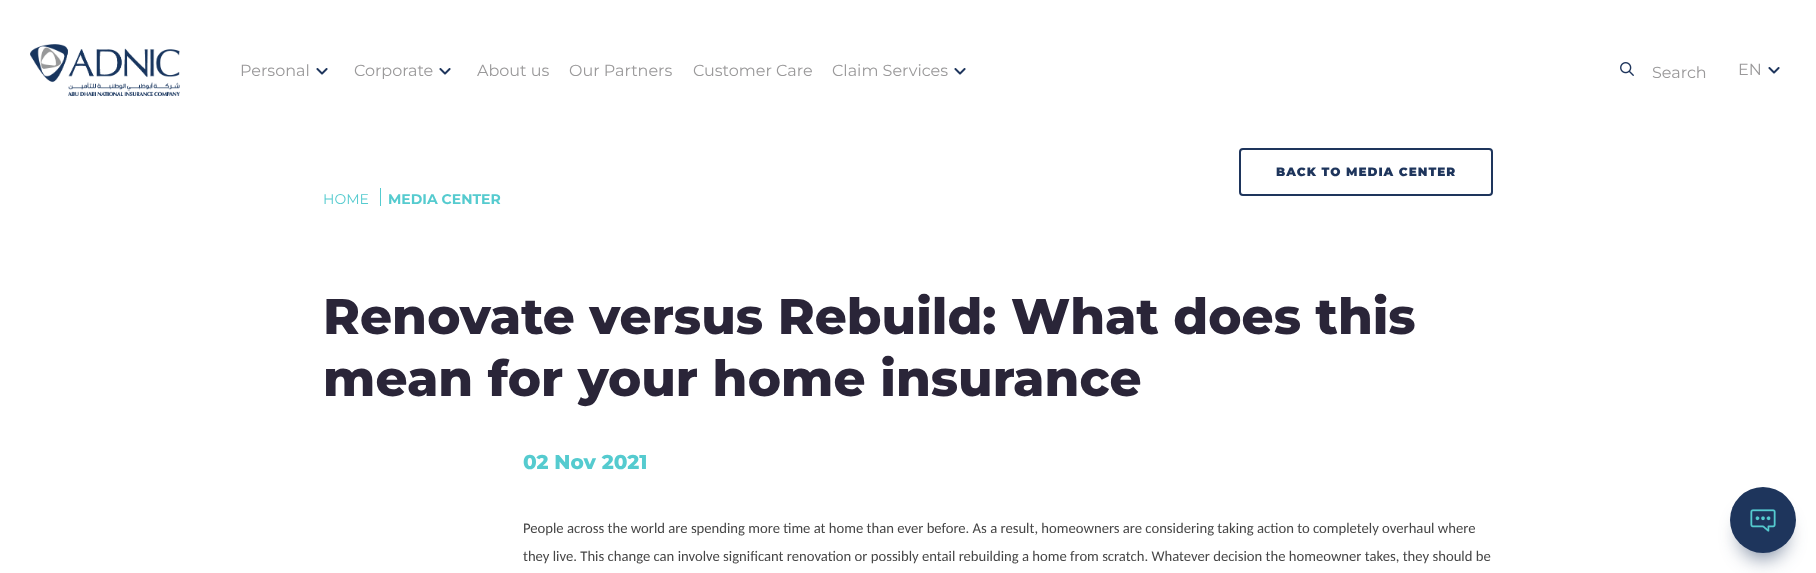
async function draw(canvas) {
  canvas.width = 1816;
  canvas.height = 573;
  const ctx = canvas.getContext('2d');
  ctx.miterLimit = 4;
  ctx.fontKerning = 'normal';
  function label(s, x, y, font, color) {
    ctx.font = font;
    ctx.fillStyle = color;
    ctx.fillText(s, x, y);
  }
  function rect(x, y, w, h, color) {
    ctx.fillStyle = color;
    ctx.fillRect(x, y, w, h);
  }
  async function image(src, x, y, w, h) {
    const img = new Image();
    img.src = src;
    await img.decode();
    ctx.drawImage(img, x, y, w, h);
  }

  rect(0, 0, 1816, 573, '#fff');
  await image('assets/img1.png', 30, 44, 150, 52);
  label('Personal', 240, 76, '16px Montserrat', '#9a999a');
  await image('assets/img2.png', 316, 68, 12, 7);
  label('Corporate', 354, 76, '16px Montserrat', '#9a999a');
  await image('assets/img2.png', 439, 68, 12, 7);
  label('About us', 477, 76, '16px Montserrat', '#9a999a');
  label('Our Partners', 569, 76, '16px Montserrat', '#9a999a');
  label('Customer Care', 693, 76, '16px Montserrat', '#9a999a');
  label('Claim Services', 832, 76, '16px Montserrat', '#9a999a');
  await image('assets/img2.png', 954, 68, 12, 7);
  await image('assets/img3.png', 1620, 62, 14, 14);
  label('Search', 1652, 78, '16px Montserrat', '#9a999a');
  await image('assets/img2.png', 1768, 67, 12, 7);
  label('EN', 1738, 75, '16px Montserrat', '#9a999a');
  ctx.beginPath();
  ctx.roundRect(1240, 149, 252, 46, 3);
  ctx.strokeStyle = '#1e355c';
  ctx.lineWidth = 2;
  ctx.stroke();
  ctx.letterSpacing = '1px';
  label('BACK TO MEDIA CENTER', 1276, 176, '900 12px Montserrat', '#1e355c');
  ctx.letterSpacing = '0px';
  label('HOME', 323, 204, '14px Montserrat', '#55cbcf');
  rect(380, 188, 1, 18, '#55cbcf');
  label('MEDIA CENTER', 388, 204, 'bold 14px Montserrat', '#55cbcf');
  label('Renovate versus Rebuild: What does this', 323, 334, '800 50px Montserrat', '#2a2538');
  label('mean for your home insurance', 323, 396, '800 50px Montserrat', '#2a2538');
  label('02 Nov 2021', 523, 469, '800 20px Montserrat', '#55cbcf');
  label('People across the world are spending more time at home than ever before. As a result, homeowners are considering taking action to completely overhaul where', 523, 533, '14.67px Carlito', '#464646');
  label('they live. This change can involve significant renovation or possibly entail rebuilding a home from scratch. Whatever decision the homeowner takes, they should be', 523, 561, '14.67px Carlito', '#464646');
  ctx.fillStyle = '#1e355c99';
  ctx.filter = 'blur(10px)';
  ctx.beginPath();
  ctx.roundRect(1740, 512, 46, 46, 23);
  ctx.fill();
  ctx.filter = 'none';
  ctx.fillStyle = '#1e355c';
  ctx.beginPath();
  ctx.arc(1763, 520, 33, 0, 2 * Math.PI);
  ctx.fill();
  await image('assets/img4.png', 1750, 509, 26, 23);
}

draw(document.querySelector('canvas'));
